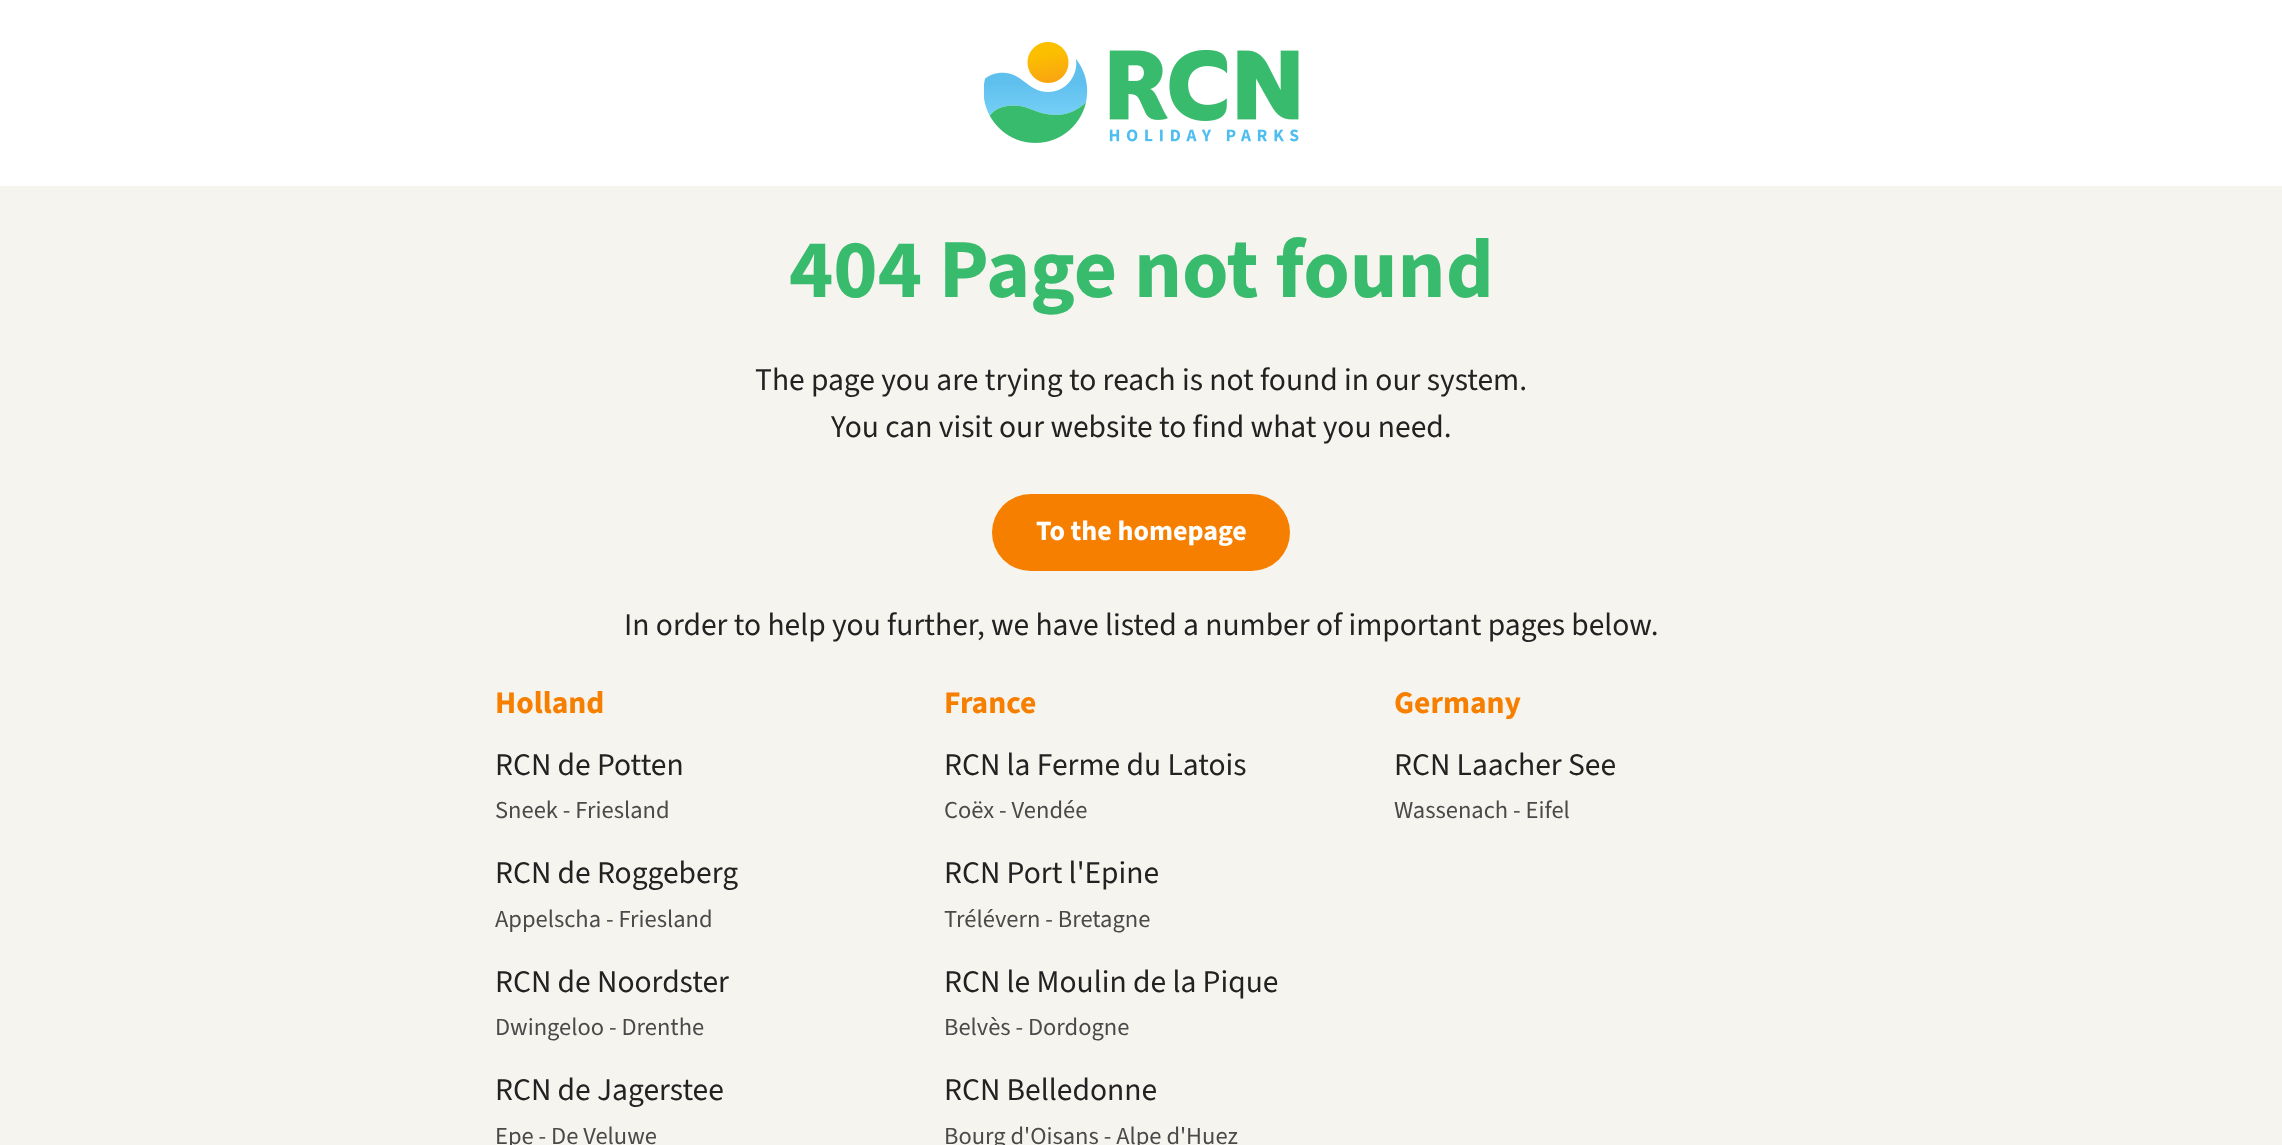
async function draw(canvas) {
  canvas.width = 2282;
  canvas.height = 1145;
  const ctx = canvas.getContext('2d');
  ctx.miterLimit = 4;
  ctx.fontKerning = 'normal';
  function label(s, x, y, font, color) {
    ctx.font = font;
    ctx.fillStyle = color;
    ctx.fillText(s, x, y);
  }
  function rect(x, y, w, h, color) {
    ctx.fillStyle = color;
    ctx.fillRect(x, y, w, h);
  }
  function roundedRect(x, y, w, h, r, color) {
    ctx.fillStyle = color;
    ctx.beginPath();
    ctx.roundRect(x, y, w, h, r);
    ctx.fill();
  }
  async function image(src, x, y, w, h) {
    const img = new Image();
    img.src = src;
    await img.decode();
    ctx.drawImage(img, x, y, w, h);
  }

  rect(0, 0, 2282, 1145, '#fff');
  await image('assets/img1.png', 984, 42, 315, 101);
  rect(0, 186, 2282, 959, '#f6f4ee');
  label('404 Page not found', 789, 297, 'bold 84px "Source Sans 3"', '#39bb6e');
  label('The page you are trying to reach is not found in our system.', 755, 390, '31.5px "Source Sans 3"', '#222');
  label('You can visit our website to find what you need.', 831, 437, '31.5px "Source Sans 3"', '#222');
  roundedRect(992, 494, 298, 77, 38.5, '#f67f00');
  label('To the homepage', 1036, 540, 'bold 28px "Source Sans 3"', '#fff');
  label('In order to help you further, we have listed a number of important pages below.', 624, 635, '31.5px "Source Sans 3"', '#222');
  label('Holland', 495, 713, 'bold 31.5px "Source Sans 3"', '#f67f00');
  label('RCN de Potten', 495, 775, '31.5px "Source Sans 3"', '#222');
  label('Sneek - Friesland', 495, 818, '24.5px "Source Sans 3"', '#4a4a4a');
  label('RCN de Roggeberg', 495, 883, '31.5px "Source Sans 3"', '#222');
  label('Appelscha - Friesland', 495, 927, '24.5px "Source Sans 3"', '#4a4a4a');
  label('RCN de Noordster', 495, 992, '31.5px "Source Sans 3"', '#222');
  label('Dwingeloo - Drenthe', 495, 1035, '24.5px "Source Sans 3"', '#4a4a4a');
  label('RCN de Jagerstee', 495, 1100, '31.5px "Source Sans 3"', '#222');
  label('Epe - De Veluwe', 495, 1144, '24.5px "Source Sans 3"', '#4a4a4a');
  label('France', 944, 713, 'bold 31.5px "Source Sans 3"', '#f67f00');
  label('RCN la Ferme du Latois', 944, 775, '31.5px "Source Sans 3"', '#222');
  label('Coëx - Vendée', 944, 818, '24.5px "Source Sans 3"', '#4a4a4a');
  label('RCN Port l\'Epine', 944, 883, '31.5px "Source Sans 3"', '#222');
  label('Trélévern - Bretagne', 944, 927, '24.5px "Source Sans 3"', '#4a4a4a');
  label('RCN le Moulin de la Pique', 944, 992, '31.5px "Source Sans 3"', '#222');
  label('Belvès - Dordogne', 944, 1035, '24.5px "Source Sans 3"', '#4a4a4a');
  label('RCN Belledonne', 944, 1100, '31.5px "Source Sans 3"', '#222');
  label('Bourg d\'Oisans - Alpe d\'Huez', 944, 1144, '24.5px "Source Sans 3"', '#4a4a4a');
  label('Germany', 1394, 713, 'bold 31.5px "Source Sans 3"', '#f67f00');
  label('RCN Laacher See', 1394, 775, '31.5px "Source Sans 3"', '#222');
  label('Wassenach - Eifel', 1394, 818, '24.5px "Source Sans 3"', '#4a4a4a');
}

draw(document.querySelector('canvas'));
